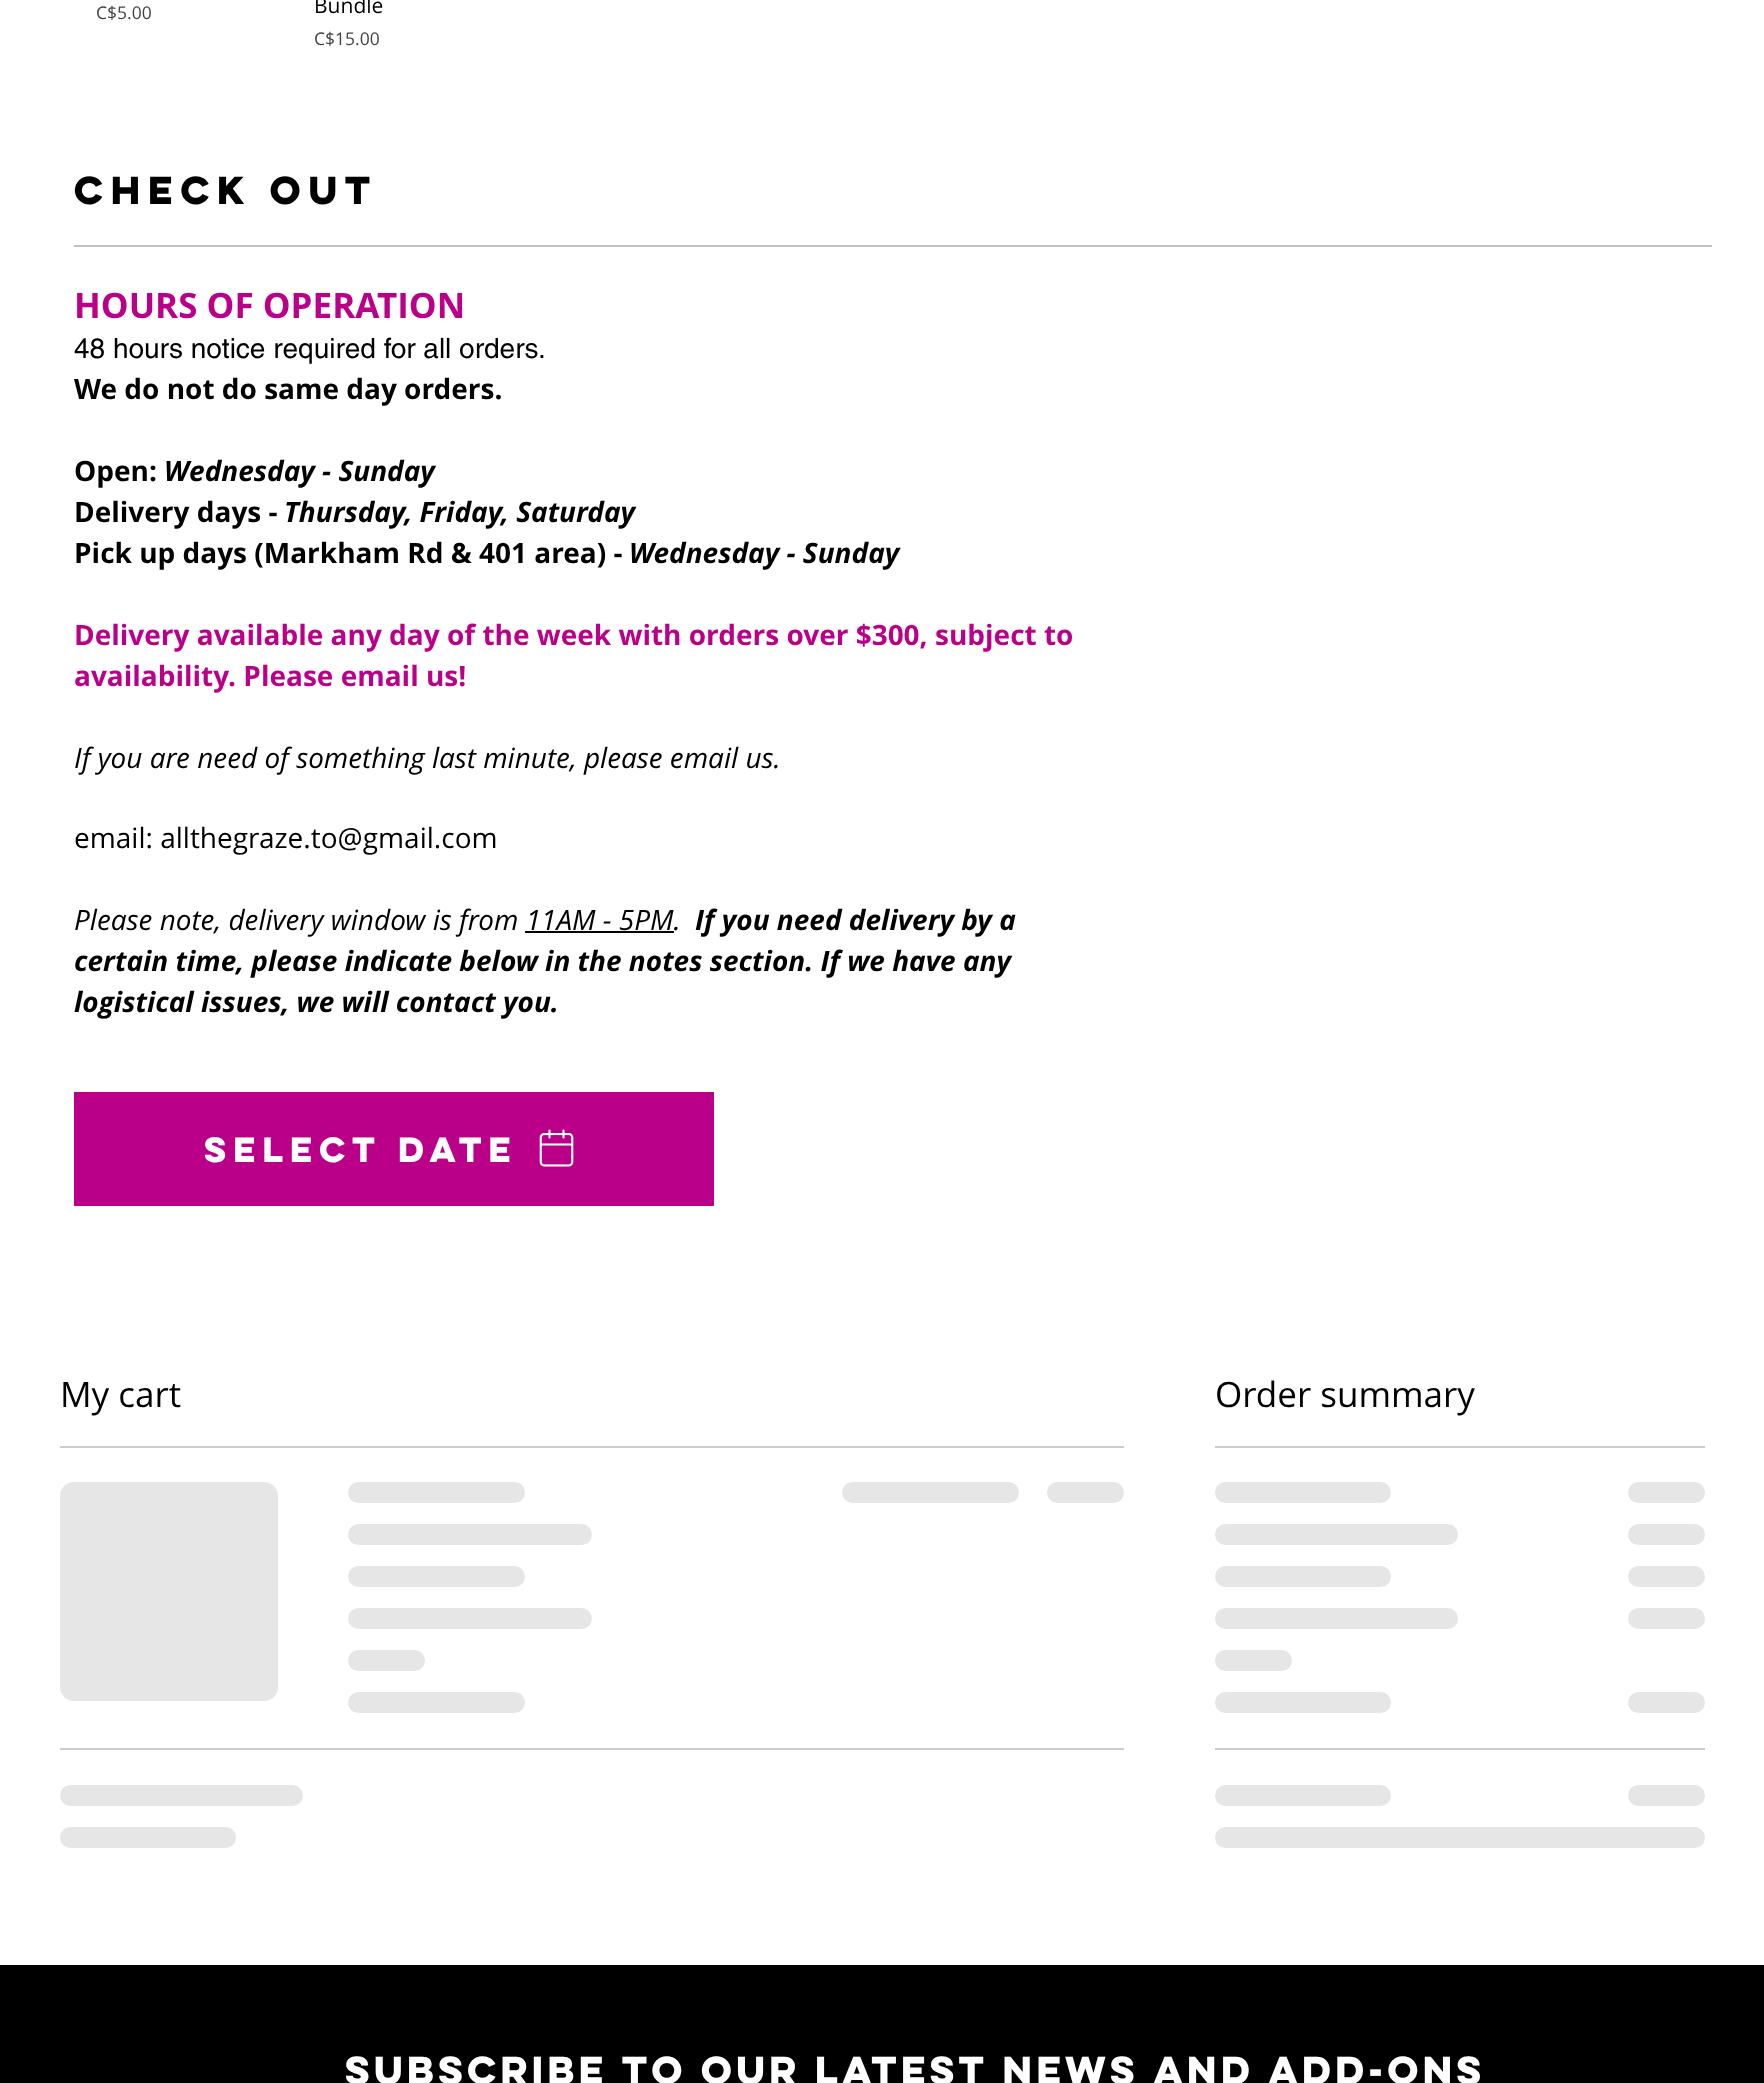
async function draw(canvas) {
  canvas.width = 1764;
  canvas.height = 2083;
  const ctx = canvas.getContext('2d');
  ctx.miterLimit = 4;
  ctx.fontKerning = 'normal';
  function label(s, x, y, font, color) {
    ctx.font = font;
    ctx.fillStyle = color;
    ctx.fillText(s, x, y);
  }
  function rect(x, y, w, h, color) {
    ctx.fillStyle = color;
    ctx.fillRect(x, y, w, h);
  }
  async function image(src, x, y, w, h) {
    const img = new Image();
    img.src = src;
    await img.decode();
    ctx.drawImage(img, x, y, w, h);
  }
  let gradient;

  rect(0, 0, 1764, 2083, '#fff');
  label('C$5.00', 96, 19, '17.5px Open Sans', '#424242');
  label('Bundle', 314, 13, '21px Open Sans', '#000');
  label('C$15.00', 314, 45, '17.5px Open Sans', '#424242');
  label('CHECK OUT', 74, 204, 'bold 35px "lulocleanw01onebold"', '#000');
  rect(74, 245, 1638, 2, '#c1c1c1');
  label('HOURS OF OPERATION', 74, 318, 'bold 35px Open Sans', '#ba0089');
  label('48 hours notice required for all orders.', 74, 358, '28px helvetica', '#000');
  label('We do not do same day orders.', 74, 399, 'bold 28px Open Sans', '#000');
  label('Open:', 74, 481, 'bold 28px "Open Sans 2"', '#000');
  label('Wednesday - Sunday', 164, 481, 'italic bold 28px Open Sans', '#000');
  label('Delivery days -', 74, 522, 'bold 28px Open Sans', '#000');
  label('Thursday, Friday, Saturday', 284, 522, 'italic bold 28px "Open Sans 2"', '#000');
  label('Pick up days (Markham Rd & 401 area) -', 74, 563, 'bold 28px Open Sans', '#000');
  label('Wednesday - Sunday', 629, 563, 'italic bold 28px "Open Sans 2"', '#000');
  label('Delivery available any day of the week with orders over $300, subject to', 74, 645, 'bold 28px Open Sans', '#ba0089');
  label('availability. Please email us!', 74, 686, 'bold 28px Open Sans', '#ba0089');
  label('If you are need of something last minute, please email us.', 74, 768, 'italic 28px Open Sans', '#000');
  label('email: allthegraze.to@gmail.com', 74, 848, '28px Open Sans', '#000');
  label('Please note, delivery window is from 11AM - 5PM.', 74, 930, 'italic 28px Open Sans', '#000');
  label('If you need delivery by a', 695, 930, 'italic bold 28px "Open Sans 2"', '#000');
  rect(525, 931, 149, 2, '#000');
  label('certain time, please indicate below in the notes section. If we have any', 74, 971, 'italic bold 28px "Open Sans 2"', '#000');
  label('logistical issues, we will contact you.', 74, 1012, 'italic bold 28px "Open Sans 2"', '#000');
  rect(74, 1092, 640, 114, '#ba0089');
  label('SELECT DATE', 204, 1162, 'bold 31.5px "lulocleanw01onebold"', '#fff');
  await image('assets/img1.png', 539, 1129, 35, 38);
  rect(60, 1446, 1064, 2, '#ccc');
  label('My cart', 60, 1407, '35px Open Sans', '#000');
  gradient = ctx.createLinearGradient(60, 1592, 935, 1592);
  gradient.addColorStop(0.25, '#e6e6e6');
  gradient.addColorStop(0.37, '#ccc');
  gradient.addColorStop(0.63, '#e6e6e6');
  ctx.fillStyle = gradient;
  ctx.beginPath();
  ctx.roundRect(60, 1482, 218, 219, 14);
  ctx.fill();
  gradient = ctx.createLinearGradient(348, 1493, 1055, 1493);
  gradient.addColorStop(0.25, '#e6e6e6');
  gradient.addColorStop(0.37, '#ccc');
  gradient.addColorStop(0.63, '#e6e6e6');
  ctx.fillStyle = gradient;
  ctx.beginPath();
  ctx.roundRect(348, 1482, 177, 21, 10.5);
  ctx.fill();
  gradient = ctx.createLinearGradient(348, 1535, 1321, 1535);
  gradient.addColorStop(0.25, '#e6e6e6');
  gradient.addColorStop(0.37, '#ccc');
  gradient.addColorStop(0.63, '#e6e6e6');
  ctx.fillStyle = gradient;
  ctx.beginPath();
  ctx.roundRect(348, 1524, 244, 21, 10.5);
  ctx.fill();
  gradient = ctx.createLinearGradient(348, 1577, 1055, 1577);
  gradient.addColorStop(0.25, '#e6e6e6');
  gradient.addColorStop(0.37, '#ccc');
  gradient.addColorStop(0.63, '#e6e6e6');
  ctx.fillStyle = gradient;
  ctx.beginPath();
  ctx.roundRect(348, 1566, 177, 21, 10.5);
  ctx.fill();
  gradient = ctx.createLinearGradient(348, 1619, 1321, 1619);
  gradient.addColorStop(0.25, '#e6e6e6');
  gradient.addColorStop(0.37, '#ccc');
  gradient.addColorStop(0.63, '#e6e6e6');
  ctx.fillStyle = gradient;
  ctx.beginPath();
  ctx.roundRect(348, 1608, 244, 21, 10.5);
  ctx.fill();
  gradient = ctx.createLinearGradient(348, 1661, 656, 1661);
  gradient.addColorStop(0.25, '#e6e6e6');
  gradient.addColorStop(0.37, '#ccc');
  gradient.addColorStop(0.63, '#e6e6e6');
  ctx.fillStyle = gradient;
  ctx.beginPath();
  ctx.roundRect(348, 1650, 77, 21, 10.5);
  ctx.fill();
  gradient = ctx.createLinearGradient(348, 1703, 1055, 1703);
  gradient.addColorStop(0.25, '#e6e6e6');
  gradient.addColorStop(0.37, '#ccc');
  gradient.addColorStop(0.63, '#e6e6e6');
  ctx.fillStyle = gradient;
  ctx.beginPath();
  ctx.roundRect(348, 1692, 177, 21, 10.5);
  ctx.fill();
  gradient = ctx.createLinearGradient(842, 1493, 1549, 1493);
  gradient.addColorStop(0.25, '#e6e6e6');
  gradient.addColorStop(0.37, '#ccc');
  gradient.addColorStop(0.63, '#e6e6e6');
  ctx.fillStyle = gradient;
  ctx.beginPath();
  ctx.roundRect(842, 1482, 177, 21, 10.5);
  ctx.fill();
  gradient = ctx.createLinearGradient(1047, 1493, 1355, 1493);
  gradient.addColorStop(0.25, '#e6e6e6');
  gradient.addColorStop(0.37, '#ccc');
  gradient.addColorStop(0.63, '#e6e6e6');
  ctx.fillStyle = gradient;
  ctx.beginPath();
  ctx.roundRect(1047, 1482, 77, 21, 10.5);
  ctx.fill();
  rect(60, 1748, 1064, 2, '#ccc');
  gradient = ctx.createLinearGradient(60, 1796, 1033, 1796);
  gradient.addColorStop(0.25, '#e6e6e6');
  gradient.addColorStop(0.37, '#ccc');
  gradient.addColorStop(0.63, '#e6e6e6');
  ctx.fillStyle = gradient;
  ctx.beginPath();
  ctx.roundRect(60, 1785, 243, 21, 10.5);
  ctx.fill();
  gradient = ctx.createLinearGradient(60, 1838, 767, 1838);
  gradient.addColorStop(0.25, '#e6e6e6');
  gradient.addColorStop(0.37, '#ccc');
  gradient.addColorStop(0.63, '#e6e6e6');
  ctx.fillStyle = gradient;
  ctx.beginPath();
  ctx.roundRect(60, 1827, 176, 21, 10.5);
  ctx.fill();
  rect(1215, 1446, 490, 2, '#ccc');
  label('Order summary', 1215, 1407, '35px Open Sans', '#000');
  gradient = ctx.createLinearGradient(1215, 1493, 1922, 1493);
  gradient.addColorStop(0.25, '#e6e6e6');
  gradient.addColorStop(0.37, '#ccc');
  gradient.addColorStop(0.63, '#e6e6e6');
  ctx.fillStyle = gradient;
  ctx.beginPath();
  ctx.roundRect(1215, 1482, 176, 21, 10.5);
  ctx.fill();
  gradient = ctx.createLinearGradient(1628, 1493, 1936, 1493);
  gradient.addColorStop(0.25, '#e6e6e6');
  gradient.addColorStop(0.37, '#ccc');
  gradient.addColorStop(0.63, '#e6e6e6');
  ctx.fillStyle = gradient;
  ctx.beginPath();
  ctx.roundRect(1628, 1482, 77, 21, 10.5);
  ctx.fill();
  gradient = ctx.createLinearGradient(1215, 1535, 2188, 1535);
  gradient.addColorStop(0.25, '#e6e6e6');
  gradient.addColorStop(0.37, '#ccc');
  gradient.addColorStop(0.63, '#e6e6e6');
  ctx.fillStyle = gradient;
  ctx.beginPath();
  ctx.roundRect(1215, 1524, 243, 21, 10.5);
  ctx.fill();
  gradient = ctx.createLinearGradient(1628, 1535, 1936, 1535);
  gradient.addColorStop(0.25, '#e6e6e6');
  gradient.addColorStop(0.37, '#ccc');
  gradient.addColorStop(0.63, '#e6e6e6');
  ctx.fillStyle = gradient;
  ctx.beginPath();
  ctx.roundRect(1628, 1524, 77, 21, 10.5);
  ctx.fill();
  gradient = ctx.createLinearGradient(1215, 1577, 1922, 1577);
  gradient.addColorStop(0.25, '#e6e6e6');
  gradient.addColorStop(0.37, '#ccc');
  gradient.addColorStop(0.63, '#e6e6e6');
  ctx.fillStyle = gradient;
  ctx.beginPath();
  ctx.roundRect(1215, 1566, 176, 21, 10.5);
  ctx.fill();
  gradient = ctx.createLinearGradient(1628, 1577, 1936, 1577);
  gradient.addColorStop(0.25, '#e6e6e6');
  gradient.addColorStop(0.37, '#ccc');
  gradient.addColorStop(0.63, '#e6e6e6');
  ctx.fillStyle = gradient;
  ctx.beginPath();
  ctx.roundRect(1628, 1566, 77, 21, 10.5);
  ctx.fill();
  gradient = ctx.createLinearGradient(1215, 1619, 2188, 1619);
  gradient.addColorStop(0.25, '#e6e6e6');
  gradient.addColorStop(0.37, '#ccc');
  gradient.addColorStop(0.63, '#e6e6e6');
  ctx.fillStyle = gradient;
  ctx.beginPath();
  ctx.roundRect(1215, 1608, 243, 21, 10.5);
  ctx.fill();
  gradient = ctx.createLinearGradient(1628, 1619, 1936, 1619);
  gradient.addColorStop(0.25, '#e6e6e6');
  gradient.addColorStop(0.37, '#ccc');
  gradient.addColorStop(0.63, '#e6e6e6');
  ctx.fillStyle = gradient;
  ctx.beginPath();
  ctx.roundRect(1628, 1608, 77, 21, 10.5);
  ctx.fill();
  gradient = ctx.createLinearGradient(1215, 1661, 1523, 1661);
  gradient.addColorStop(0.25, '#e6e6e6');
  gradient.addColorStop(0.37, '#ccc');
  gradient.addColorStop(0.63, '#e6e6e6');
  ctx.fillStyle = gradient;
  ctx.beginPath();
  ctx.roundRect(1215, 1650, 77, 21, 10.5);
  ctx.fill();
  gradient = ctx.createLinearGradient(1215, 1703, 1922, 1703);
  gradient.addColorStop(0.25, '#e6e6e6');
  gradient.addColorStop(0.37, '#ccc');
  gradient.addColorStop(0.63, '#e6e6e6');
  ctx.fillStyle = gradient;
  ctx.beginPath();
  ctx.roundRect(1215, 1692, 176, 21, 10.5);
  ctx.fill();
  gradient = ctx.createLinearGradient(1628, 1703, 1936, 1703);
  gradient.addColorStop(0.25, '#e6e6e6');
  gradient.addColorStop(0.37, '#ccc');
  gradient.addColorStop(0.63, '#e6e6e6');
  ctx.fillStyle = gradient;
  ctx.beginPath();
  ctx.roundRect(1628, 1692, 77, 21, 10.5);
  ctx.fill();
  rect(1215, 1748, 490, 2, '#ccc');
  gradient = ctx.createLinearGradient(1215, 1796, 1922, 1796);
  gradient.addColorStop(0.25, '#e6e6e6');
  gradient.addColorStop(0.37, '#ccc');
  gradient.addColorStop(0.63, '#e6e6e6');
  ctx.fillStyle = gradient;
  ctx.beginPath();
  ctx.roundRect(1215, 1785, 176, 21, 10.5);
  ctx.fill();
  gradient = ctx.createLinearGradient(1628, 1796, 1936, 1796);
  gradient.addColorStop(0.25, '#e6e6e6');
  gradient.addColorStop(0.37, '#ccc');
  gradient.addColorStop(0.63, '#e6e6e6');
  ctx.fillStyle = gradient;
  ctx.beginPath();
  ctx.roundRect(1628, 1785, 77, 21, 10.5);
  ctx.fill();
  gradient = ctx.createLinearGradient(1215, 1838, 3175, 1838);
  gradient.addColorStop(0.25, '#e6e6e6');
  gradient.addColorStop(0.37, '#ccc');
  gradient.addColorStop(0.63, '#e6e6e6');
  ctx.fillStyle = gradient;
  ctx.beginPath();
  ctx.roundRect(1215, 1827, 490, 21, 10.5);
  ctx.fill();
  rect(0, 1965, 1764, 118, '#000');
  ctx.letterSpacing = '-3.5px';
  label('SUBSCRIBE TO OUR LATEST NEWS AND ADD-ONS', 345, 2084, 'bold 35px "lulocleanw01onebold"', '#fff');
}

draw(document.querySelector('canvas'));
